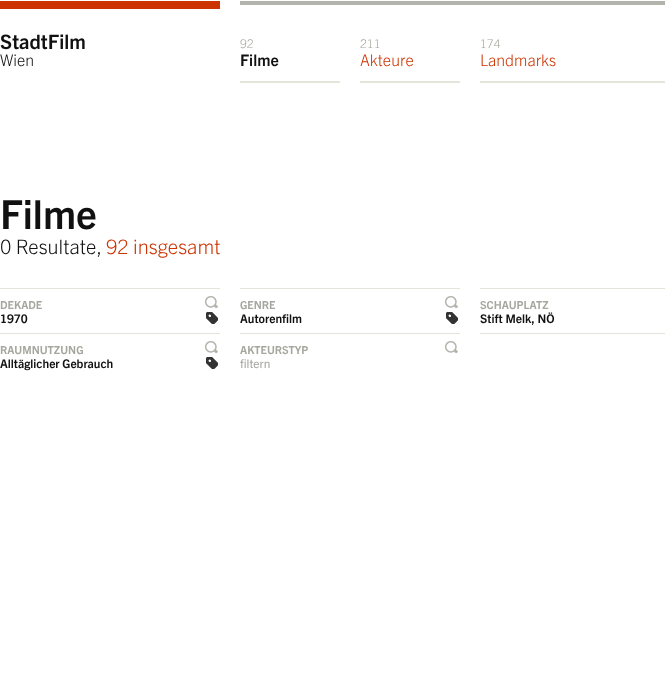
async function draw(canvas) {
  canvas.width = 665;
  canvas.height = 677;
  const ctx = canvas.getContext('2d');
  ctx.miterLimit = 4;
  ctx.fontKerning = 'normal';
  function label(s, x, y, font, color) {
    ctx.font = font;
    ctx.fillStyle = color;
    ctx.fillText(s, x, y);
  }
  function rect(x, y, w, h, color) {
    ctx.fillStyle = color;
    ctx.fillRect(x, y, w, h);
  }
  async function image(src, x, y, w, h) {
    const img = new Image();
    img.src = src;
    await img.decode();
    ctx.drawImage(img, x, y, w, h);
  }

  rect(0, 0, 665, 677, '#fff');
  rect(240, 1, 425, 4, '#b2b3aa');
  rect(0, 1, 220, 8, '#c30');
  label('StadtFilm', 0, 49, 'bold 20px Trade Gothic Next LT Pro', '#111');
  label('Wien', 0, 66, '300 16px Trade Gothic Next LT Pro', '#111');
  rect(240, 81, 100, 2, '#e4e5da');
  label('92', 240, 48, '300 12px Trade Gothic Next LT Pro', '#a5a69d');
  label('Filme', 240, 66, 'bold 16px Trade Gothic Next LT Pro', '#111');
  rect(360, 81, 100, 2, '#e4e5da');
  label('211', 360, 48, '300 12px Trade Gothic Next LT Pro', '#a5a69d');
  label('Akteure', 360, 66, '300 16px Trade Gothic Next LT Pro', '#c30');
  rect(480, 81, 185, 2, '#e4e5da');
  label('174', 480, 48, '300 12px Trade Gothic Next LT Pro', '#a5a69d');
  label('Landmarks', 480, 66, '300 16px Trade Gothic Next LT Pro', '#c30');
  label('Filme', 0, 229, 'bold 40px Trade Gothic Next LT Pro', '#111');
  label('0 Resultate,', 0, 254, '300 20px Trade Gothic Next LT Pro', '#111');
  label('92 insgesamt', 106, 254, '300 20px Trade Gothic Next LT Pro', '#c30');
  rect(0, 288, 220, 1, '#e4e5da');
  await image('assets/img1.png', 205, 296, 13, 12);
  label('DEKADE', 0, 309, 'bold 11px Trade Gothic Next LT Pro', '#a5a69d');
  await image('assets/img2.png', 206, 312, 12, 12);
  label('1970', 0, 323, 'bold 12px Trade Gothic Next LT Pro', '#111');
  rect(240, 288, 220, 1, '#e4e5da');
  await image('assets/img1.png', 445, 296, 13, 12);
  label('GENRE', 240, 309, 'bold 11px Trade Gothic Next LT Pro', '#a5a69d');
  await image('assets/img2.png', 446, 312, 12, 12);
  label('Autorenfilm', 240, 323, 'bold 12px Trade Gothic Next LT Pro', '#111');
  rect(480, 288, 185, 1, '#e4e5da');
  label('SCHAUPLATZ', 480, 309, 'bold 11px Trade Gothic Next LT Pro', '#a5a69d');
  label('Stift Melk, NÖ', 480, 323, 'bold 12px Trade Gothic Next LT Pro', '#111');
  rect(480, 333, 185, 1, '#e4e5da');
  rect(0, 333, 220, 1, '#e4e5da');
  await image('assets/img1.png', 205, 341, 13, 12);
  label('RAUMNUTZUNG', 0, 354, 'bold 11px Trade Gothic Next LT Pro', '#a5a69d');
  await image('assets/img2.png', 206, 357, 12, 12);
  label('Alltäglicher Gebrauch', 0, 368, 'bold 12px Trade Gothic Next LT Pro', '#111');
  rect(240, 333, 220, 1, '#e4e5da');
  await image('assets/img1.png', 445, 341, 13, 12);
  label('AKTEURSTYP', 240, 354, 'bold 11px Trade Gothic Next LT Pro', '#a5a69d');
  label('filtern', 240, 368, '12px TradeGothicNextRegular', '#a5a69d');
}

draw(document.querySelector('canvas'));
